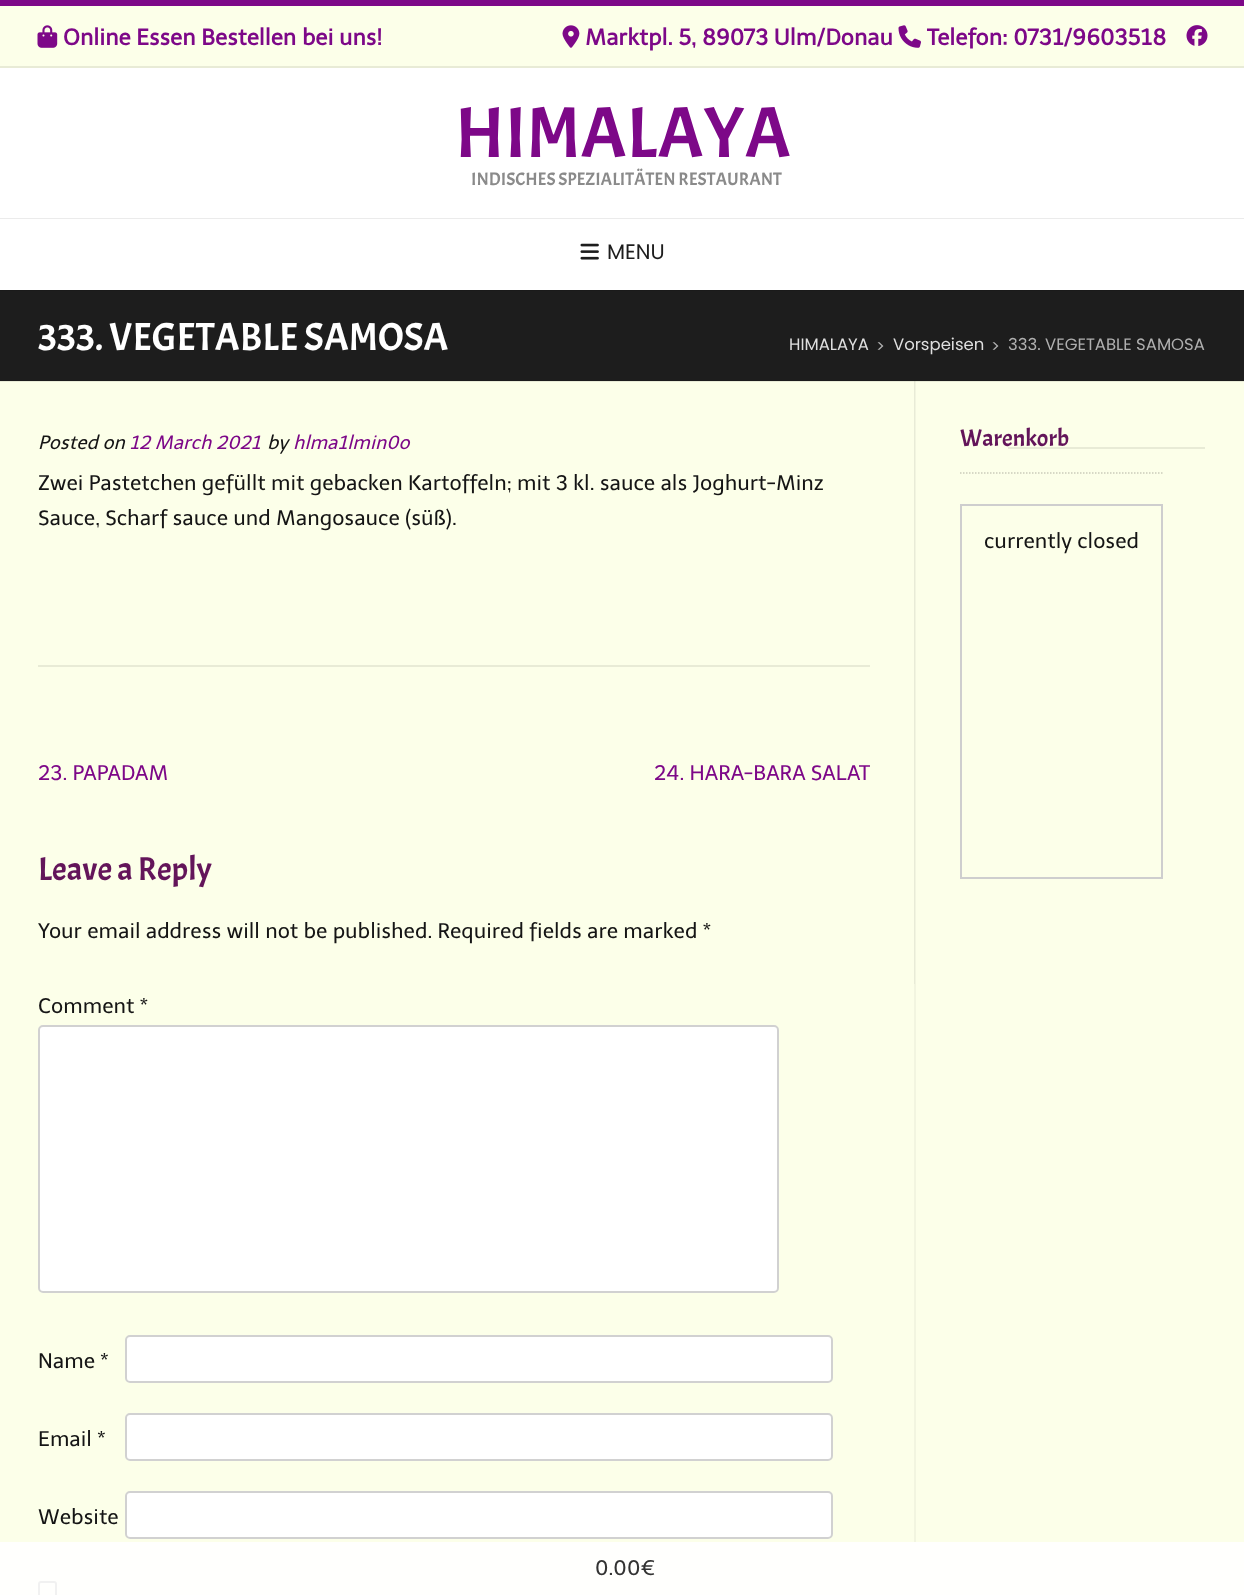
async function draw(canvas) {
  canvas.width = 1244;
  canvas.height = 1595;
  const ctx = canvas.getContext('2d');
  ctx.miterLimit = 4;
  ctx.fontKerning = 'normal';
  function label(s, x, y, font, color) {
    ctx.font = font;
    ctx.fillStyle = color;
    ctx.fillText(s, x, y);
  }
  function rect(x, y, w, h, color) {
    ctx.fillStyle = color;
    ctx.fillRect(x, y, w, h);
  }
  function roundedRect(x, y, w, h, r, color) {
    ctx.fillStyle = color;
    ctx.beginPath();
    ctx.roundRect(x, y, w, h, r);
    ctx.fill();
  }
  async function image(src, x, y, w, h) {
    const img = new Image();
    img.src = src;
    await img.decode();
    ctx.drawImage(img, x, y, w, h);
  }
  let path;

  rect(0, 0, 1244, 1595, '#fcffe9');
  rect(0, 1542, 1244, 53, '#fffffd');
  rect(914, 381, 2, 1161, '#f2f5e0');
  rect(914, 381, 1, 603, '#e8ebd7');
  rect(0, 381, 1244, 1, '#e8ebd6');
  rect(914, 381, 2, 1, '#dfe2cd');
  rect(914, 381, 1, 1, '#d6d9c5');
  rect(0, 290, 1244, 1, '#1a1a1a');
  rect(0, 68, 1244, 222, '#fff');
  rect(0, 0, 1244, 6, '#7d0888');
  rect(0, 66, 1244, 2, '#e8ebd6');
  await image('assets/img1.png', 37, 25, 21, 23);
  label('Online Essen Bestellen bei uns!', 63, 45, 'bold 22.5px Telex', '#7d0888');
  await image('assets/img2.png', 562, 25, 18, 23);
  label('Marktpl. 5, 89073 Ulm/Donau', 585, 45, 'bold 22.5px Telex', '#7d0888');
  await image('assets/img3.png', 898, 25, 23, 23);
  label('Telefon: 0731/9603518', 927, 45, 'bold 22.5px Telex', '#7d0888');
  await image('assets/img4.png', 1186, 25, 22, 21);
  rect(0, 218, 1244, 1, '#ebebeb');
  label('HIMALAYA', 455, 157, '72px Acme', '#7d0888');
  label('INDISCHES SPEZIALITÄTEN RESTAURANT', 471, 185, '18px Acme', '#8a8a8a');
  await image('assets/img5.png', 580, 243, 19, 17);
  label('MENU', 607, 259, '21px Poppins', '#1d1d1d');
  rect(0, 291, 1244, 89, '#1d1d1d');
  rect(0, 380, 1244, 1, '#1b1b1b');
  label('333. VEGETABLE SAMOSA', 38, 350, '39px Acme', '#fff');
  label('HIMALAYA', 789, 350, '16.5px Poppins', '#dfdfdf');
  label('>', 876, 352, '16.5px Poppins', '#afafaf');
  label('Vorspeisen', 893, 350, '16.5px Poppins', '#dfdfdf');
  label('>', 991, 352, '16.5px Poppins', '#afafaf');
  label('333. VEGETABLE SAMOSA', 1008, 350, '16.5px Poppins', '#afafaf');
  rect(1008, 447, 197, 2, '#e8ebd6');
  rect(38, 665, 832, 2, '#e8ebd6');
  label('Posted on', 38, 449, 'italic 19px Telex', '#151515');
  label('12 March 2021', 129, 449, 'italic 19px Telex', '#7d0888');
  label('by', 267, 449, 'italic 19px Telex', '#151515');
  label('hlma1lmin0o', 293, 449, 'italic 19px Telex', '#7d0888');
  label('Zwei Pastetchen gefüllt mit gebacken Kartoffeln; mit 3 kl. sauce als Joghurt-Minz', 38, 490, '21px Telex', '#151515');
  label('Sauce, Scharf sauce und Mangosauce (süß).', 38, 525, '21px Telex', '#151515');
  label('23. PAPADAM', 38, 780, '21px Telex', '#7d0888');
  label('24. HARA-BARA SALAT', 654, 780, '21px Telex', '#7d0888');
  label('Leave a Reply', 38, 880, '33px Acme', '#63155a');
  label('Your email address will not be published. Required fields are marked *', 38, 938, '21px Telex', '#151515');
  label('Comment *', 38, 1013, '21px Telex', '#151515');
  roundedRect(38, 1025, 741, 268, 5, '#fff');
  ctx.beginPath();
  ctx.roundRect(39, 1026, 739, 266, 4);
  ctx.strokeStyle = '#0000002e';
  ctx.lineWidth = 2;
  ctx.stroke();
  label('Name *', 38, 1368, '21px Telex', '#151515');
  roundedRect(125, 1335, 708, 48, 5, '#fff');
  ctx.beginPath();
  ctx.roundRect(126, 1336, 706, 46, 4);
  ctx.stroke();
  label('Email *', 38, 1446, '21px Telex', '#151515');
  roundedRect(125, 1413, 708, 48, 5, '#fff');
  ctx.beginPath();
  ctx.roundRect(126, 1414, 706, 46, 4);
  ctx.stroke();
  label('Website', 38, 1524, '21px Telex', '#151515');
  roundedRect(125, 1491, 708, 48, 5, '#fff');
  ctx.beginPath();
  ctx.roundRect(126, 1492, 706, 46, 4);
  ctx.stroke();
  ctx.beginPath();
  ctx.roundRect(39, 1582, 17, 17, 2);
  ctx.strokeStyle = '#f1f1f1';
  ctx.stroke();
  path = new Path2D('M960 473H1162.5');
  ctx.strokeStyle = '#caccba';
  ctx.lineWidth = 1.5;
  ctx.setLineDash([1.5, 1.5]);
  ctx.stroke(path);
  label('Warenkorb', 960, 446, '24px Acme', '#63155a');
  ctx.strokeStyle = '#cecece';
  ctx.lineWidth = 2;
  ctx.setLineDash([]);
  ctx.strokeRect(961, 505, 201, 373);
  label('currently closed', 984, 548, '21px Telex', '#151515');
  label('0.00€', 595, 1575, '21px Telex', '#333');
}

draw(document.querySelector('canvas'));
